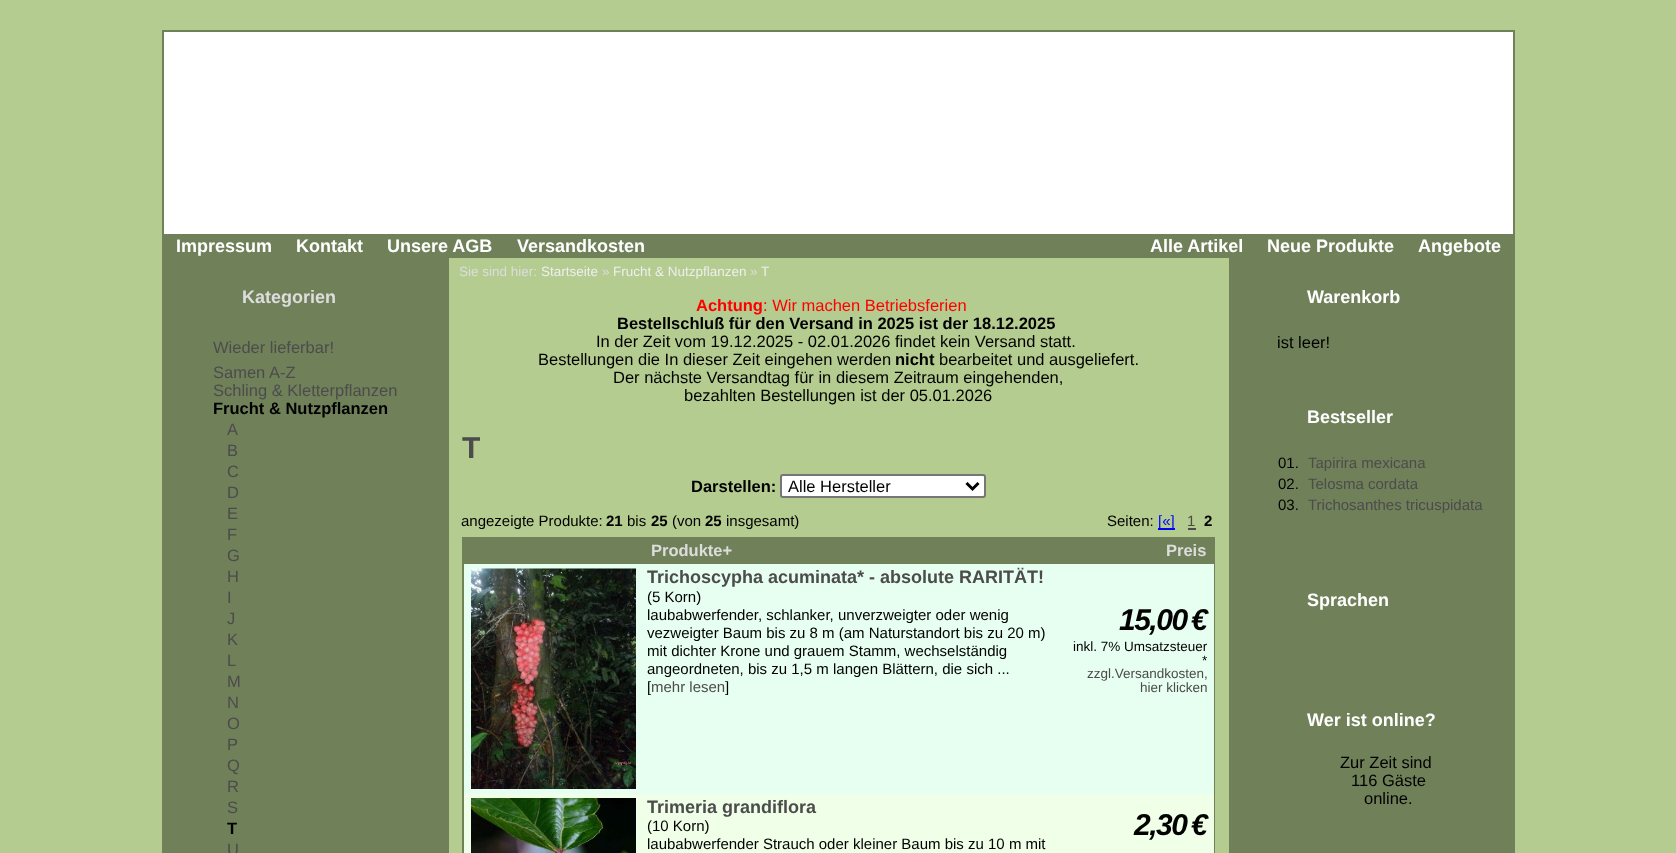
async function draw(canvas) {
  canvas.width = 1676;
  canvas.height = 853;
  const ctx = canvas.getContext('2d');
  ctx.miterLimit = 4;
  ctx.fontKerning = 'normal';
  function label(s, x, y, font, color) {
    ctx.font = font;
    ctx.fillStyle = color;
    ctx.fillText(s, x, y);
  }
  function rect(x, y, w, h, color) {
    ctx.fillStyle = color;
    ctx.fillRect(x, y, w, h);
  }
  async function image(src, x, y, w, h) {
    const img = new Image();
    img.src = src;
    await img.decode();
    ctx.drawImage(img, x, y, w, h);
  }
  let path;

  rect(0, 0, 1676, 853, '#b4cc8f');
  rect(164, 32, 1349, 202, '#fff');
  ctx.strokeStyle = '#708059';
  ctx.lineWidth = 2;
  ctx.strokeRect(163, 31, 1351, 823);
  rect(164, 234, 1349, 24, '#708059');
  label('Impressum', 176, 252, 'bold 18px Liberation Sans', '#fff');
  label('Kontakt', 296, 252, 'bold 18px Liberation Sans', '#fff');
  label('Unsere AGB', 387, 252, 'bold 18px Liberation Sans', '#fff');
  label('Versandkosten', 517, 252, 'bold 18px Liberation Sans', '#fff');
  label('Alle Artikel', 1150, 252, 'bold 18px Liberation Sans', '#fff');
  label('Neue Produkte', 1267, 252, 'bold 18px Liberation Sans', '#fff');
  label('Angebote', 1418, 252, 'bold 18px Liberation Sans', '#fff');
  rect(164, 258, 285, 595, '#708059');
  label('Kategorien', 242, 303, 'bold 18px Liberation Sans', '#ddd');
  label('Wieder lieferbar!', 213, 353, '16.5px Liberation Sans', '#4c4c4c');
  label('Samen A-Z', 213, 378, '16.5px Liberation Sans', '#4c4c4c');
  label('Schling & Kletterpflanzen', 213, 396, '16.5px Liberation Sans', '#4c4c4c');
  label('Frucht & Nutzpflanzen', 213, 414, 'bold 16.5px Liberation Sans', '#000');
  label('A', 227, 435, '16.5px Liberation Sans', '#4c4c4c');
  label('B', 227, 456, '16.5px Liberation Sans', '#4c4c4c');
  label('C', 227, 477, '16.5px Liberation Sans', '#4c4c4c');
  label('D', 227, 498, '16.5px Liberation Sans', '#4c4c4c');
  label('E', 227, 519, '16.5px Liberation Sans', '#4c4c4c');
  label('F', 227, 540, '16.5px Liberation Sans', '#4c4c4c');
  label('G', 227, 561, '16.5px Liberation Sans', '#4c4c4c');
  label('H', 227, 582, '16.5px Liberation Sans', '#4c4c4c');
  label('I', 227, 603, '16.5px Liberation Sans', '#4c4c4c');
  label('J', 227, 624, '16.5px Liberation Sans', '#4c4c4c');
  label('K', 227, 645, '16.5px Liberation Sans', '#4c4c4c');
  label('L', 227, 666, '16.5px Liberation Sans', '#4c4c4c');
  label('M', 227, 687, '16.5px Liberation Sans', '#4c4c4c');
  label('N', 227, 708, '16.5px Liberation Sans', '#4c4c4c');
  label('O', 227, 729, '16.5px Liberation Sans', '#4c4c4c');
  label('P', 227, 750, '16.5px Liberation Sans', '#4c4c4c');
  label('Q', 227, 771, '16.5px Liberation Sans', '#4c4c4c');
  label('R', 227, 792, '16.5px Liberation Sans', '#4c4c4c');
  label('S', 227, 813, '16.5px Liberation Sans', '#4c4c4c');
  label('T', 227, 834, 'bold 16.5px Liberation Sans', '#000');
  label('U', 227, 855, '16.5px Liberation Sans', '#4c4c4c');
  label('Sie sind hier:', 459, 276, '13.5px Liberation Sans', '#ddd');
  label('Startseite', 541, 276, '13.5px Liberation Sans', '#eee');
  label('»', 602, 276, '13.5px Liberation Sans', '#ddd');
  label('Frucht & Nutzpflanzen', 613, 276, '13.5px Liberation Sans', '#eee');
  label('»', 750, 276, '13.5px Liberation Sans', '#ddd');
  label('T', 761, 276, '13.5px Liberation Sans', '#eee');
  label('Achtung', 696, 311, 'bold 16.5px Liberation Sans', '#f00');
  label(': Wir machen Betriebsferien', 763, 311, '16.5px Liberation Sans', '#f00');
  label('Bestellschluß für den Versand in 2025 ist der 18.12.2025', 617, 329, 'bold 16.5px Liberation Sans', '#000');
  label('In der Zeit vom 19.12.2025 - 02.01.2026 findet kein Versand statt.', 596, 347, '16.5px Liberation Sans', '#000');
  label('Bestellungen die In dieser Zeit eingehen werden', 538, 365, '16.5px Liberation Sans', '#000');
  label('nicht', 895, 365, 'bold 16.5px Liberation Sans', '#000');
  label('bearbeitet und ausgeliefert.', 939, 365, '16.5px Liberation Sans', '#000');
  label('Der nächste Versandtag für in diesem Zeitraum eingehenden,', 613, 383, '16.5px Liberation Sans', '#000');
  label('bezahlten Bestellungen ist der 05.01.2026', 684, 401, '16.5px Liberation Sans', '#000');
  label('T', 462, 458, 'bold 30px Liberation Sans', '#4c4c4c');
  label('Darstellen:', 691, 492, 'bold 16.5px Liberation Sans', '#000');
  ctx.fillStyle = '#fff';
  ctx.beginPath();
  ctx.roundRect(781, 475, 204, 22, 2);
  ctx.fill();
  ctx.strokeStyle = '#767676';
  ctx.stroke();
  path = new Path2D('M966.5 483L972.5 489L978.5 483');
  ctx.strokeStyle = '#000';
  ctx.lineWidth = 3;
  ctx.stroke(path);
  label('Alle Hersteller', 788, 492, '16.5px Liberation Sans', '#000');
  label('angezeigte Produkte:', 461, 526, '15px Liberation Sans', '#000');
  label('21', 606, 526, 'bold 15px Liberation Sans', '#000');
  label('bis', 627, 526, '15px Liberation Sans', '#000');
  label('25', 651, 526, 'bold 15px Liberation Sans', '#000');
  label('(von', 672, 526, '15px Liberation Sans', '#000');
  label('25', 705, 526, 'bold 15px Liberation Sans', '#000');
  label('insgesamt)', 726, 526, '15px Liberation Sans', '#000');
  label('Seiten:', 1107, 526, '15px Liberation Sans', '#000');
  rect(1158, 528, 17, 2, '#00f');
  label('[«]', 1158, 526, '15px Liberation Sans', '#00f');
  label('1', 1187, 526, '15px Liberation Sans', '#4c4c4c');
  rect(1188, 528, 8, 2, '#4c4c4c');
  label('2', 1204, 526, 'bold 15px Liberation Sans', '#000');
  ctx.strokeStyle = '#708059';
  ctx.lineWidth = 2;
  ctx.strokeRect(463, 538, 751, 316);
  rect(464, 539, 749, 25, '#708059');
  label('Produkte+', 651, 556, 'bold 16.5px Liberation Sans', '#ddd');
  label('Preis', 1166, 556, 'bold 16.5px Liberation Sans', '#ddd');
  rect(464, 564, 750, 230, '#e7fff0');
  await image('assets/img1.png', 471, 568, 165, 221);
  label('Trichoscypha acuminata* - absolute RARITÄT!', 647, 583, 'bold 18px Liberation Sans', '#4c4c4c');
  label('(5 Korn)', 647, 602, '15px Liberation Sans', '#000');
  label('laubabwerfender, schlanker, unverzweigter oder wenig', 647, 620, '15px Liberation Sans', '#000');
  label('vezweigter Baum bis zu 8 m (am Naturstandort bis zu 20 m)', 647, 638, '15px Liberation Sans', '#000');
  label('mit dichter Krone und grauem Stamm, wechselständig', 647, 656, '15px Liberation Sans', '#000');
  label('angeordneten, bis zu 1,5 m langen Blättern, die sich ...', 647, 674, '15px Liberation Sans', '#000');
  label('[', 647, 692, '15px Liberation Sans', '#000');
  label('mehr lesen', 651, 692, '15px Liberation Sans', '#4c4c4c');
  label(']', 725, 692, '15px Liberation Sans', '#000');
  ctx.letterSpacing = '-1.5px';
  label('15,00', 1119, 630, 'italic bold 30px Liberation Sans', '#000');
  label('€', 1191, 630, 'italic bold 30px Liberation Sans', '#000');
  ctx.letterSpacing = '0px';
  label('inkl. 7% Umsatzsteuer', 1073, 651, '13.5px Liberation Sans', '#000');
  label('*', 1202, 665, '13.5px Liberation Sans', '#000');
  label('zzgl.Versandkosten,', 1087, 678, '13.5px Liberation Sans', '#4c4c4c');
  label('hier klicken', 1140, 692, '13.5px Liberation Sans', '#4c4c4c');
  rect(464, 794, 750, 59, '#f0ffe7');
  await image('assets/img2.png', 471, 798, 165, 55);
  label('Trimeria grandiflora', 647, 813, 'bold 18px Liberation Sans', '#4c4c4c');
  label('(10 Korn)', 647, 831, '15px Liberation Sans', '#000');
  label('laubabwerfender Strauch oder kleiner Baum bis zu 10 m mit', 647, 849, '15px Liberation Sans', '#000');
  ctx.letterSpacing = '-1.5px';
  label('2,30', 1134, 835, 'italic bold 30px Liberation Sans', '#000');
  label('€', 1191, 835, 'italic bold 30px Liberation Sans', '#000');
  rect(1229, 258, 284, 595, '#708059');
  ctx.letterSpacing = '0px';
  label('Warenkorb', 1307, 303, 'bold 18px Liberation Sans', '#fff');
  label('ist leer!', 1277, 348, '16.5px Liberation Sans', '#000');
  label('Bestseller', 1307, 423, 'bold 18px Liberation Sans', '#fff');
  label('01.', 1278, 468, '15px Liberation Sans', '#000');
  label('Tapirira mexicana', 1308, 468, '15px Liberation Sans', '#4c4c4c');
  label('02.', 1278, 489, '15px Liberation Sans', '#000');
  label('Telosma cordata', 1308, 489, '15px Liberation Sans', '#4c4c4c');
  label('03.', 1278, 510, '15px Liberation Sans', '#000');
  label('Trichosanthes tricuspidata', 1308, 510, '15px Liberation Sans', '#4c4c4c');
  label('Sprachen', 1307, 606, 'bold 18px Liberation Sans', '#fff');
  label('Wer ist online?', 1307, 726, 'bold 18px Liberation Sans', '#fff');
  label('Zur Zeit sind', 1340, 768, '16.5px Liberation Sans', '#000');
  label('116 Gäste', 1351, 786, '16.5px Liberation Sans', '#000');
  label('online.', 1364, 804, '16.5px Liberation Sans', '#000');
}

draw(document.querySelector('canvas'));
